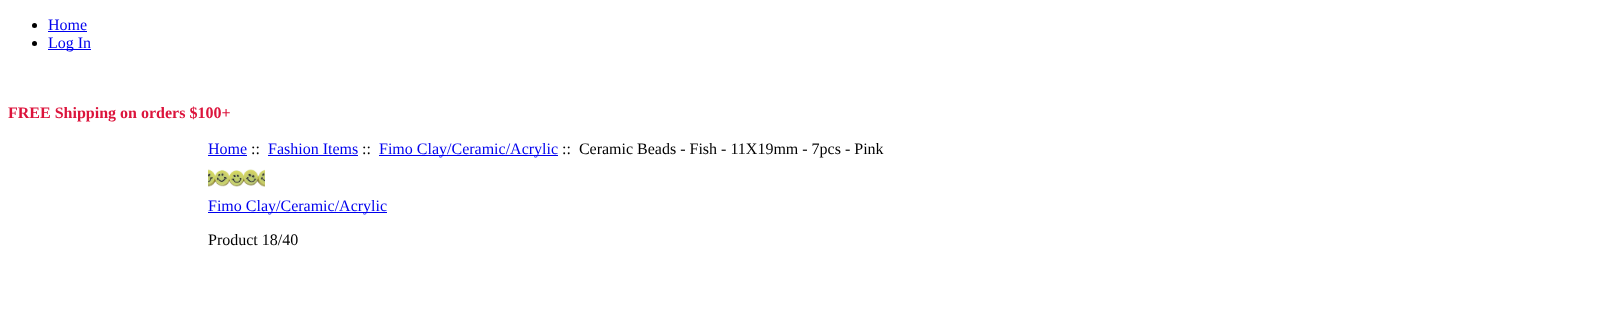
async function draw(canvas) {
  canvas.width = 1610;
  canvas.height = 309;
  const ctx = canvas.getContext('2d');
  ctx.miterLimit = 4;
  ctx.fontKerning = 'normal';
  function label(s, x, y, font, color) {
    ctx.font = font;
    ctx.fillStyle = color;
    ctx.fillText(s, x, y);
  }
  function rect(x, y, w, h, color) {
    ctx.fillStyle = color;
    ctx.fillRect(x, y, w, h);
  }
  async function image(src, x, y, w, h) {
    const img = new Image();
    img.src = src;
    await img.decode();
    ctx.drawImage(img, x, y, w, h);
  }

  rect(0, 0, 1610, 309, '#fff');
  ctx.fillStyle = '#000';
  ctx.beginPath();
  ctx.arc(34.5, 25.5, 2.5, 0, 2 * Math.PI);
  ctx.fill();
  label('Home', 48, 30, '16px Liberation Serif', '#00e');
  rect(48, 31, 39, 1, '#00e');
  ctx.fillStyle = '#000';
  ctx.beginPath();
  ctx.arc(34.5, 43.5, 2.5, 0, 2 * Math.PI);
  ctx.fill();
  rect(48, 49, 43, 1, '#00e');
  label('Log In', 48, 48, '16px Liberation Serif', '#00e');
  label('FREE Shipping on orders $100+', 8, 118, 'bold 16px Liberation Serif', '#dc143c');
  label('Home', 208, 154, '16px Liberation Serif', '#00e');
  rect(208, 155, 39, 1, '#00e');
  label('::', 251, 154, '16px Liberation Serif', '#000');
  label('Fashion Items', 268, 154, '16px Liberation Serif', '#00e');
  rect(268, 155, 90, 1, '#00e');
  label('::', 362, 154, '16px Liberation Serif', '#000');
  rect(379, 155, 179, 1, '#00e');
  label('Fimo Clay/Ceramic/Acrylic', 379, 154, '16px Liberation Serif', '#00e');
  label('::  Ceramic Beads - Fish - 11X19mm - 7pcs - Pink', 562, 154, '16px Liberation Serif', '#000');
  await image('assets/img1.png', 208, 169, 57, 18);
  rect(208, 212, 179, 1, '#00e');
  label('Fimo Clay/Ceramic/Acrylic', 208, 211, '16px Liberation Serif', '#00e');
  label('Product 18/40', 208, 245, '16px Liberation Serif', '#000');
}

draw(document.querySelector('canvas'));
